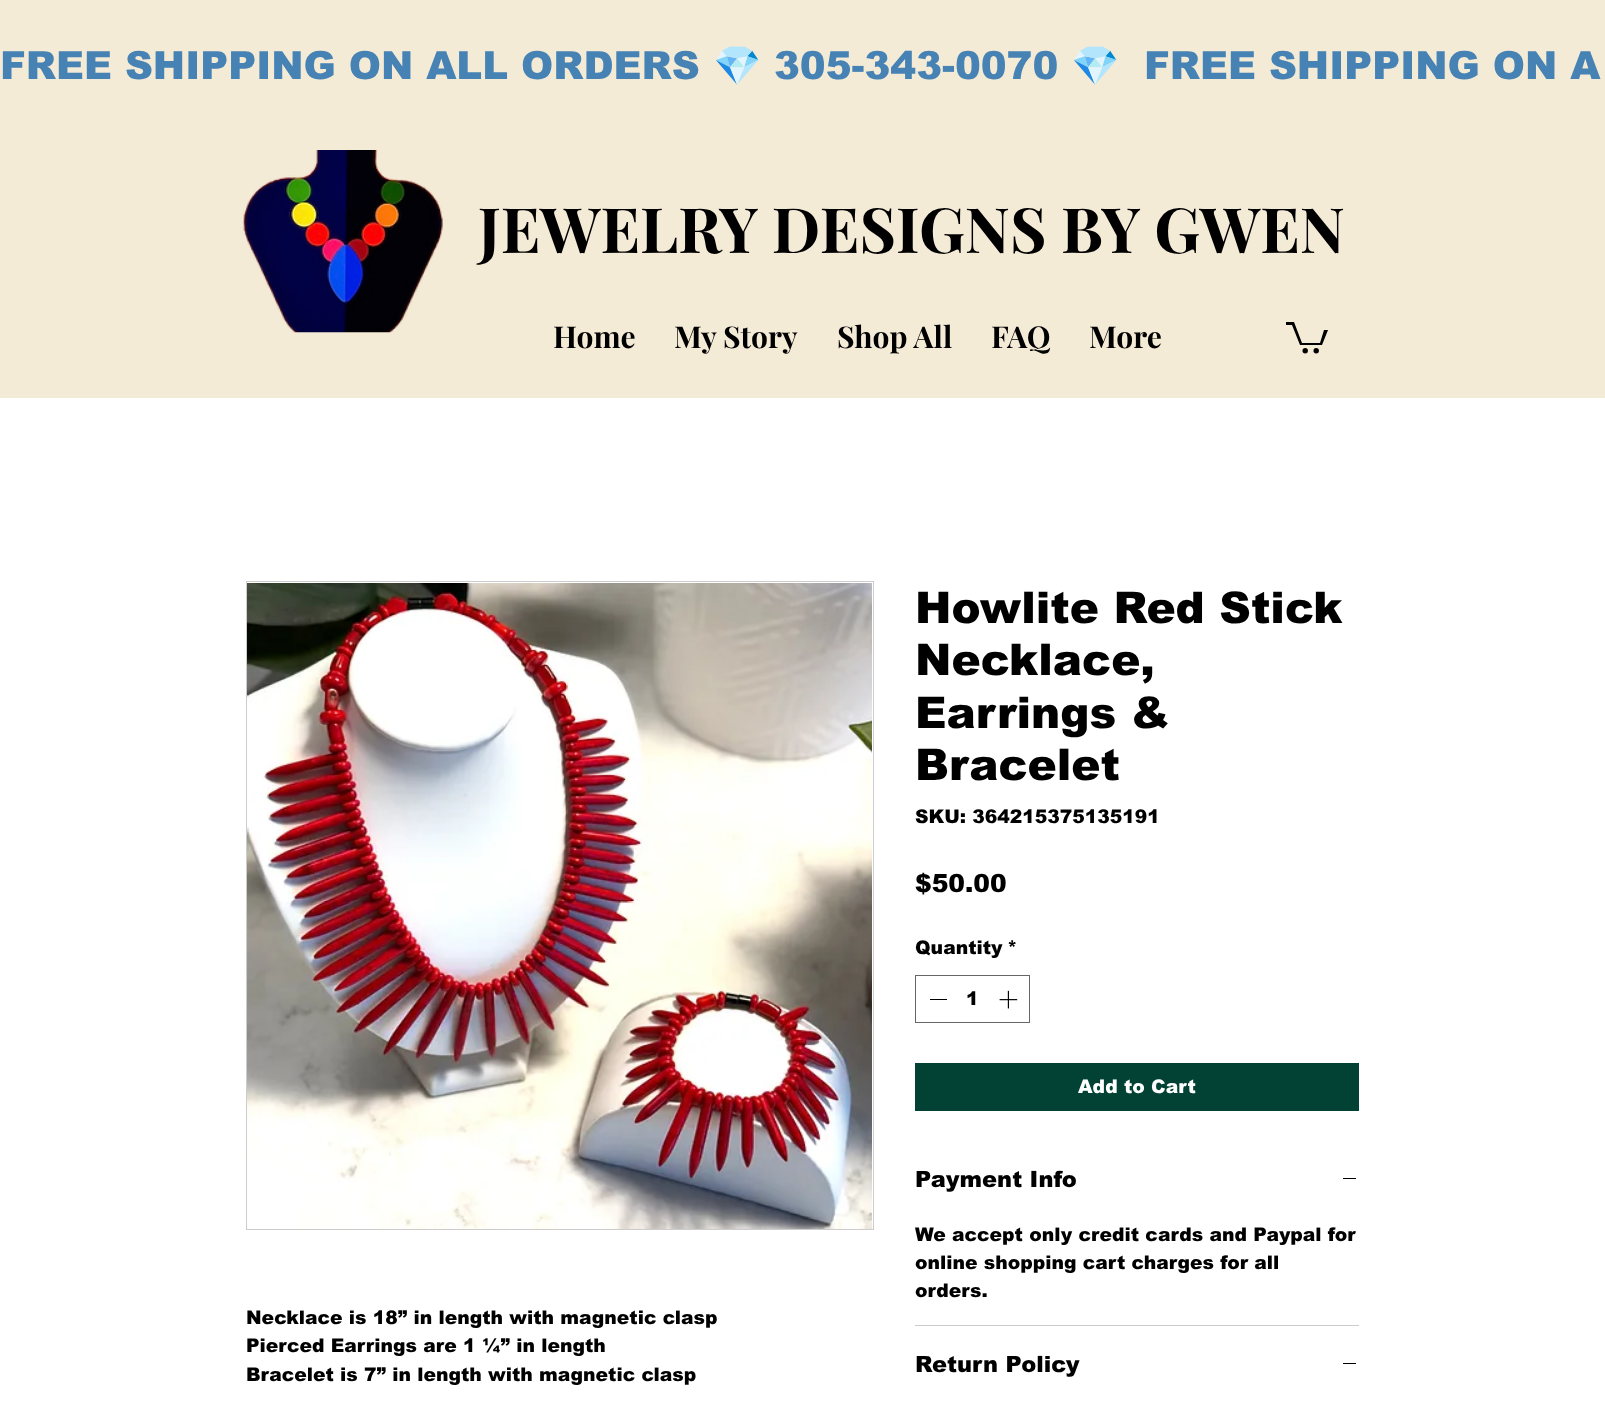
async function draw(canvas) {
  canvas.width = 1605;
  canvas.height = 1422;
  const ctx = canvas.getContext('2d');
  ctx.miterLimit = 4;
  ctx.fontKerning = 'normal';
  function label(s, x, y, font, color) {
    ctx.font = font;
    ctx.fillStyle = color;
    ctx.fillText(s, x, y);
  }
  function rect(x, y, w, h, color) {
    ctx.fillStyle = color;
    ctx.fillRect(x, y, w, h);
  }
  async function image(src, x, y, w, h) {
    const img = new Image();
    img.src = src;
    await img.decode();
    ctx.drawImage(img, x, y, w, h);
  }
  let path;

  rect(0, 0, 1605, 1422, '#f4ebd7');
  label('FREE SHIPPING ON ALL ORDERS', 0, 79, '900 38.75px arial', '#4682b4');
  label('💎', 713, 79, '38.75px Noto Color Emoji', '#4682b4');
  label('305-343-0070', 774, 79, '900 38.75px arial', '#4682b4');
  label('💎', 1071, 79, '38.75px Noto Color Emoji', '#4682b4');
  label('FREE SHIPPING ON A', 1144, 79, '900 38.75px arial', '#4682b4');
  await image('assets/img1.png', 242, 150, 201, 183);
  label('JEWELRY DESIGNS BY GWEN', 478, 253, 'bold 62.5px Playfair Display', '#000');
  label('Home', 553, 348, 'bold 30px "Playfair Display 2"', '#000');
  label('My Story', 674, 348, 'bold 30px "Playfair Display 2"', '#000');
  label('Shop All', 837, 348, 'bold 30px "Playfair Display 2"', '#000');
  label('FAQ', 991, 348, 'bold 30px "Playfair Display 2"', '#000');
  label('More', 1089, 348, 'bold 30px "Playfair Display 2"', '#000');
  path = new Path2D('M1328 330L1322 345H1300L1292 325H1286V322H1294L1302 343H1320L1324 330');
  ctx.fill(path);
  ctx.beginPath();
  ctx.arc(1316.2, 350.7, 2.7, 0, 2 * Math.PI);
  ctx.fill();
  ctx.beginPath();
  ctx.arc(1305.2, 350.7, 2.7, 0, 2 * Math.PI);
  ctx.fill();
  rect(0, 398, 1605, 1024, '#fff');
  ctx.strokeStyle = '#ccc';
  ctx.strokeRect(246.5, 581.5, 627, 648);
  await image('assets/img2.png', 247, 583, 625, 646);
  label('Necklace is 18” in length with magnetic clasp', 246, 1324, '900 18.75px arial', '#000');
  label('Pierced Earrings are 1 ¼” in length', 246, 1352, '900 18.75px arial', '#000');
  label('Bracelet is 7” in length with magnetic clasp', 246, 1381, '900 18.75px arial', '#000');
  label('Howlite Red Stick', 915, 623, '900 43.75px arial', '#000');
  label('Necklace,', 915, 675, '900 43.75px arial', '#000');
  label('Earrings &', 915, 728, '900 43.75px arial', '#000');
  label('Bracelet', 915, 780, '900 43.75px arial', '#000');
  label('SKU: 364215375135191', 915, 823, '900 18.75px arial', '#000');
  label('$50.00', 915, 892, '900 25px arial', '#000');
  label('Quantity', 915, 954, '900 18.75px arial', '#000');
  label('*', 1007, 954, '900 18.75px arial', '#000');
  ctx.strokeStyle = '#666';
  ctx.strokeRect(915.5, 975.5, 114, 47);
  rect(930, 999, 17, 1, '#000');
  label('1', 966, 1005, '900 18.75px arial', '#000');
  await image('assets/img3.png', 999, 990, 19, 19);
  rect(915, 1063, 444, 48, '#014235');
  label('Add to Cart', 1078, 1093, '900 18.75px arial', '#fff');
  rect(915, 1325, 444, 1, '#ccc');
  label('Payment Info', 915, 1187, '900 22.5px arial', '#000');
  rect(1343, 1178, 13, 1, '#000');
  label('We accept only credit cards and Paypal for', 915, 1241, '900 18.75px arial', '#000');
  label('online shopping cart charges for all', 915, 1269, '900 18.75px arial', '#000');
  label('orders.', 915, 1297, '900 18.75px arial', '#000');
  label('Return Policy', 915, 1372, '900 22.5px arial', '#000');
  rect(1343, 1363, 13, 1, '#000');
}

draw(document.querySelector('canvas'));
